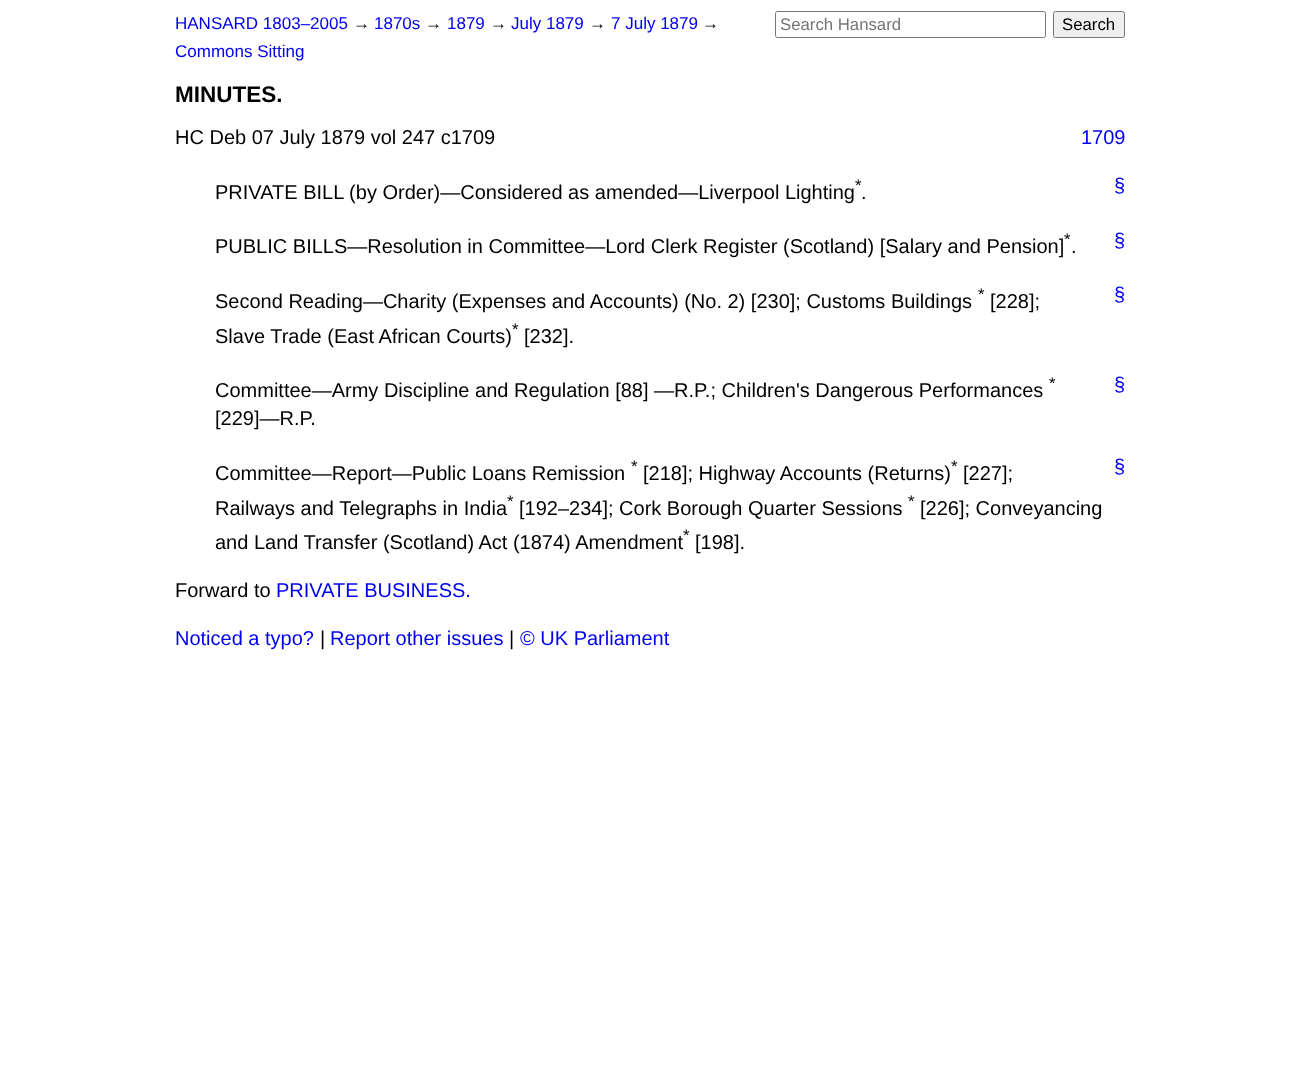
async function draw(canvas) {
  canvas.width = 1300;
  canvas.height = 1077;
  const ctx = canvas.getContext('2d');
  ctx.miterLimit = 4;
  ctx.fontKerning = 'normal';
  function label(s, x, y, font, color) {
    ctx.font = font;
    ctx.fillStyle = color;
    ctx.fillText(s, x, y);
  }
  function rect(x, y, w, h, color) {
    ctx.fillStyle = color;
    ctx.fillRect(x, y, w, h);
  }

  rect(0, 0, 1300, 1077, '#fff');
  label('HANSARD 1803–2005', 175, 29, '17px Liberation Sans', '#00e');
  label('→', 353, 29, '17px Liberation Sans', '#000');
  label('1870s', 374, 29, '17px Liberation Sans', '#00e');
  label('→', 425, 29, '17px Liberation Sans', '#000');
  label('1879', 447, 29, '17px Liberation Sans', '#00e');
  label('→', 490, 29, '17px Liberation Sans', '#000');
  label('July 1879', 511, 29, '17px Liberation Sans', '#00e');
  label('→', 589, 29, '17px Liberation Sans', '#000');
  label('7 July 1879', 611, 29, '17px Liberation Sans', '#00e');
  label('→', 702, 29, '17px Liberation Sans', '#000');
  label('Commons Sitting', 175, 57, '17px Liberation Sans', '#00e');
  ctx.beginPath();
  ctx.roundRect(775.5, 11.5, 270, 26, 2);
  ctx.strokeStyle = '#767676';
  ctx.stroke();
  label('Search Hansard', 780, 30, '16.75px Liberation Sans', '#757575');
  ctx.fillStyle = '#efefef';
  ctx.beginPath();
  ctx.roundRect(1053.5, 11.5, 71, 26, 2);
  ctx.fill();
  ctx.stroke();
  label('Search', 1062, 30, '16.75px Liberation Sans', '#000');
  label('MINUTES.', 175, 102, 'bold 22.5px Liberation Sans', '#000');
  label('HC Deb 07 July 1879 vol 247 c1709', 175, 144, '20px Liberation Sans', '#000');
  label('1709', 1081, 144, '20px Liberation Sans', '#00e');
  label('*', 855, 191, '16.75px Liberation Sans', '#000');
  label('§', 1114, 192, '20px Liberation Sans', '#00e');
  label('PRIVATE BILL (by Order)—Considered as amended—Liverpool Lighting', 215, 199, '20px Liberation Sans', '#000');
  label('.', 861, 199, '20px Liberation Sans', '#000');
  label('*', 1064, 245, '16.75px Liberation Sans', '#000');
  label('§', 1114, 247, '20px Liberation Sans', '#00e');
  label('PUBLIC BILLS—Resolution in Committee—Lord Clerk Register (Scotland) [Salary and Pension]', 215, 253, '20px Liberation Sans', '#000');
  label('.', 1071, 253, '20px Liberation Sans', '#000');
  label('*', 978, 300, '16.75px Liberation Sans', '#000');
  label('§', 1114, 301, '20px Liberation Sans', '#00e');
  label('Second Reading—Charity (Expenses and Accounts) (No. 2) [230]; Customs Buildings', 215, 308, '20px Liberation Sans', '#000');
  label('[228];', 990, 308, '20px Liberation Sans', '#000');
  label('*', 512, 335, '16.75px Liberation Sans', '#000');
  label('Slave Trade (East African Courts)', 215, 343, '20px Liberation Sans', '#000');
  label('[232].', 524, 343, '20px Liberation Sans', '#000');
  label('*', 1049, 389, '16.75px Liberation Sans', '#000');
  label('§', 1114, 391, '20px Liberation Sans', '#00e');
  label('Committee—Army Discipline and Regulation [88] —R.P.; Children\'s Dangerous Performances', 215, 397, '20px Liberation Sans', '#000');
  label('[229]—R.P.', 215, 425, '20px Liberation Sans', '#000');
  label('*', 631, 472, '16.75px Liberation Sans', '#000');
  label('*', 951, 472, '16.75px Liberation Sans', '#000');
  label('§', 1114, 473, '20px Liberation Sans', '#00e');
  label('Committee—Report—Public Loans Remission', 215, 480, '20px Liberation Sans', '#000');
  label('[218]; Highway Accounts (Returns)', 643, 480, '20px Liberation Sans', '#000');
  label('[227];', 963, 480, '20px Liberation Sans', '#000');
  label('*', 507, 507, '16.75px Liberation Sans', '#000');
  label('*', 908, 507, '16.75px Liberation Sans', '#000');
  label('Railways and Telegraphs in India', 215, 515, '20px Liberation Sans', '#000');
  label('[192–234]; Cork Borough Quarter Sessions', 519, 515, '20px Liberation Sans', '#000');
  label('[226]; Conveyancing', 920, 515, '20px Liberation Sans', '#000');
  label('*', 683, 541, '16.75px Liberation Sans', '#000');
  label('and Land Transfer (Scotland) Act (1874) Amendment', 215, 549, '20px Liberation Sans', '#000');
  label('[198].', 695, 549, '20px Liberation Sans', '#000');
  label('Forward to', 175, 597, '20px Liberation Sans', '#000');
  label('PRIVATE BUSINESS.', 276, 597, '20px Liberation Sans', '#00e');
  label('Noticed a typo?', 175, 645, '20px Liberation Sans', '#00e');
  label('|', 320, 645, '20px Liberation Sans', '#000');
  label('Report other issues', 330, 645, '20px Liberation Sans', '#00e');
  label('|', 509, 645, '20px Liberation Sans', '#000');
  label('© UK Parliament', 520, 645, '20px Liberation Sans', '#00e');
}

draw(document.querySelector('canvas'));
